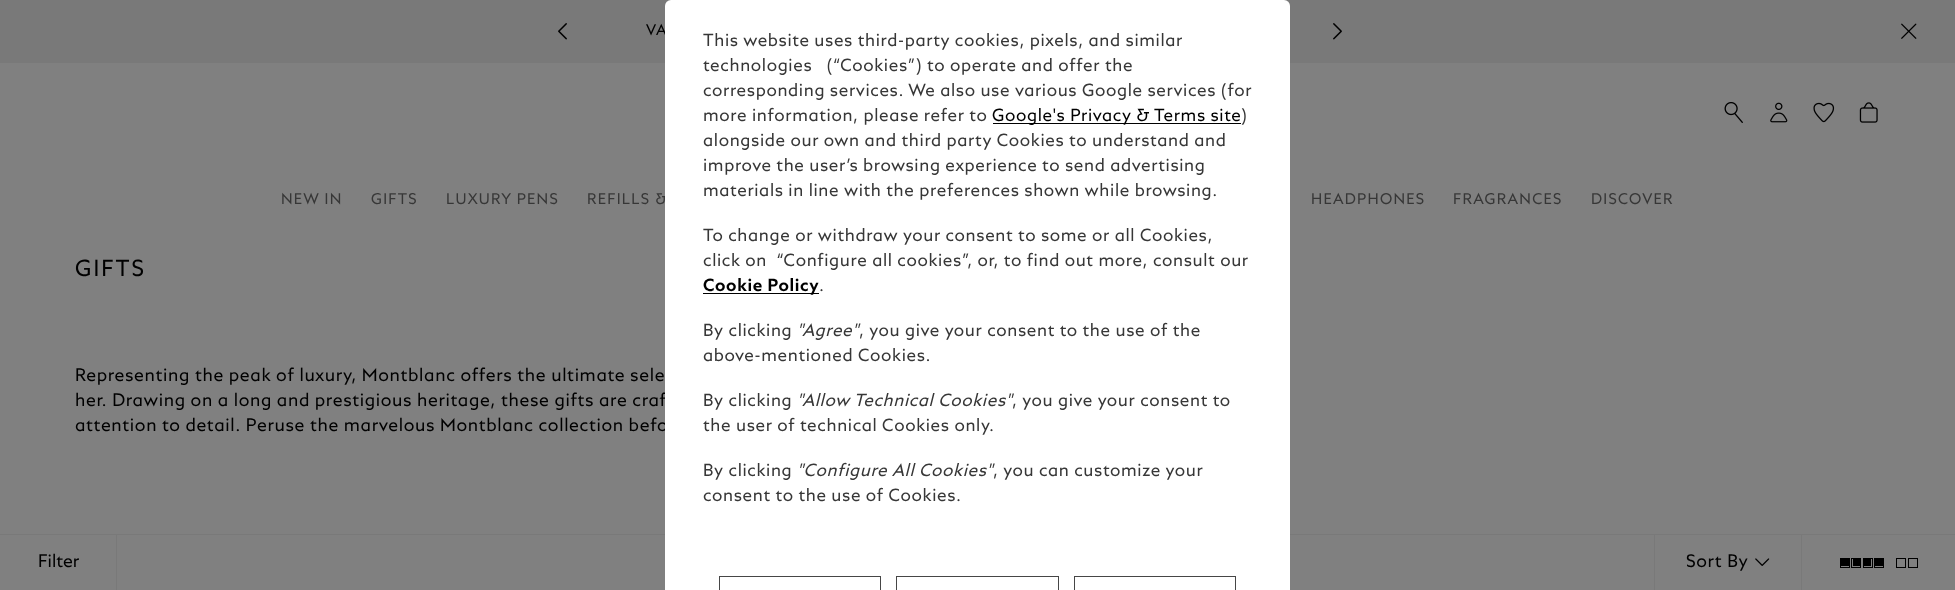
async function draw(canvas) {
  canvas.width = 1955;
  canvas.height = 590;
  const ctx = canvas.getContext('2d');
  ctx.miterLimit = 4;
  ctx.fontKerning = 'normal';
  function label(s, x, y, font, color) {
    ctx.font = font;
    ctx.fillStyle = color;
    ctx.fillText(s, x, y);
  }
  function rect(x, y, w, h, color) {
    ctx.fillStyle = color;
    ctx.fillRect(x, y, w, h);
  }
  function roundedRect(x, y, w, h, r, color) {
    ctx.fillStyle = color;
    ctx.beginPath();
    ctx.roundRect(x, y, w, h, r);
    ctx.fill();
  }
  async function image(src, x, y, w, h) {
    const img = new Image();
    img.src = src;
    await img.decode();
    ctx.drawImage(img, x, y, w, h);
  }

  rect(0, 0, 1955, 590, '#808080');
  rect(0, 0, 1955, 63, '#797979');
  await image('assets/img1.png', 558, 23, 9, 17);
  ctx.letterSpacing = '1.25px';
  label('VA', 646, 35, '15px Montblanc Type', '#000');
  await image('assets/img2.png', 1333, 23, 9, 17);
  await image('assets/img3.png', 1901, 23, 16, 16);
  await image('assets/img4.png', 1724, 102, 19, 21);
  await image('assets/img5.png', 1770, 102, 18, 21);
  await image('assets/img6.png', 1813, 102, 22, 21);
  await image('assets/img7.png', 1859, 102, 19, 21);
  label('NEW IN', 281, 204, '15px Montblanc Type', '#373737');
  label('GIFTS', 371, 204, '15px Montblanc Type', '#373737');
  label('LUXURY PENS', 446, 204, '15px Montblanc Type', '#373737');
  label('REFILLS &', 587, 204, '15px Montblanc Type', '#373737');
  label('HEADPHONES', 1311, 204, '15px Montblanc Type', '#373737');
  label('FRAGRANCES', 1453, 204, '15px Montblanc Type', '#373737');
  label('DISCOVER', 1591, 204, '15px Montblanc Type', '#373737');
  ctx.letterSpacing = '2px';
  label('GIFTS', 75, 276, '22.5px Montblanc Type', '#000');
  ctx.letterSpacing = '0.63px';
  label('Representing the peak of luxury, Montblanc offers the ultimate sele', 75, 381, '17.5px Montblanc Type', '#000');
  label('her. Drawing on a long and prestigious heritage, these gifts are craf', 75, 406, '17.5px Montblanc Type', '#000');
  label('attention to detail. Peruse the marvelous Montblanc collection befo', 75, 431, '17.5px Montblanc Type', '#000');
  rect(0, 534, 1955, 1, '#797979');
  rect(116, 535, 1, 55, '#797979');
  ctx.letterSpacing = '0px';
  label('Filter', 38, 567, '17.5px Montblanc Type', '#000');
  rect(1801, 535, 1, 55, '#797979');
  rect(1654, 535, 1, 55, '#797979');
  ctx.letterSpacing = '0.63px';
  label('Sort By', 1686, 567, '17.5px Montblanc Type', '#000');
  await image('assets/img8.png', 1755, 558, 15, 8);
  ctx.strokeStyle = '#000';
  ctx.strokeRect(1840.5, 558.5, 9, 9);
  rect(1841, 559, 8, 7, '#000');
  ctx.strokeRect(1851.5, 558.5, 9, 9);
  rect(1853, 559, 7, 7, '#000');
  ctx.strokeRect(1863.5, 558.5, 9, 9);
  rect(1864, 559, 7, 7, '#000');
  ctx.strokeRect(1874.5, 558.5, 9, 9);
  rect(1875, 559, 8, 7, '#000');
  ctx.strokeRect(1896.5, 558.5, 9, 9);
  ctx.strokeRect(1908.5, 558.5, 9, 9);
  roundedRect(665, 0, 625, 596, 6, '#fff');
  label('This website uses third-party cookies, pixels, and similar', 703, 46, '17px Montblanc Type', '#373737');
  label('technologies   (“Cookies”) to operate and offer the', 703, 71, '17px Montblanc Type', '#373737');
  label('corresponding services. We also use various Google services (for', 703, 96, '17px Montblanc Type', '#373737');
  label('more information, please refer to', 703, 121, '17px Montblanc Type', '#373737');
  rect(993, 123, 248, 1, '#000');
  label('Google\'s Privacy & Terms site', 992, 121, '17px Montblanc Type', '#000');
  label(')', 1241, 121, '17px Montblanc Type', '#373737');
  label('alongside our own and third party Cookies to understand and', 703, 146, '17px Montblanc Type', '#373737');
  label('improve the user’s browsing experience to send advertising', 703, 171, '17px Montblanc Type', '#373737');
  label('materials in line with the preferences shown while browsing.', 703, 196, '17px Montblanc Type', '#373737');
  label('To change or withdraw your consent to some or all Cookies,', 703, 241, '17px Montblanc Type', '#373737');
  label('click on  “Configure all cookies”, or, to find out more, consult our', 703, 266, '17px Montblanc Type', '#373737');
  rect(703, 293, 116, 1, '#000');
  label('Cookie Policy', 703, 291, 'bold 17px Montblanc Type', '#000');
  label('.', 819, 291, '17px Montblanc Type', '#373737');
  label('By clicking', 703, 336, '17px Montblanc Type', '#373737');
  label('"Agree"', 797, 336, 'italic 17px Montblanc Type', '#373737');
  label(', you give your consent to the use of the', 859, 336, '17px Montblanc Type', '#373737');
  label('above-mentioned Cookies.', 703, 361, '17px Montblanc Type', '#373737');
  label('By clicking', 703, 406, '17px Montblanc Type', '#373737');
  label('"Allow Technical Cookies"', 797, 406, 'italic 17px Montblanc Type', '#373737');
  label(', you give your consent to', 1012, 406, '17px Montblanc Type', '#373737');
  label('the user of technical Cookies only.', 703, 431, '17px Montblanc Type', '#373737');
  label('By clicking', 703, 476, '17px Montblanc Type', '#373737');
  label('"Configure All Cookies"', 797, 476, 'italic 17px Montblanc Type', '#373737');
  label(', you can customize your', 993, 476, '17px Montblanc Type', '#373737');
  label('consent to the use of Cookies.', 703, 501, '17px Montblanc Type', '#373737');
  ctx.strokeStyle = '#464646';
  ctx.strokeRect(719.5, 576.5, 161, 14);
  ctx.strokeRect(896.5, 576.5, 162, 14);
  ctx.strokeRect(1074.5, 576.5, 161, 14);
}

draw(document.querySelector('canvas'));
